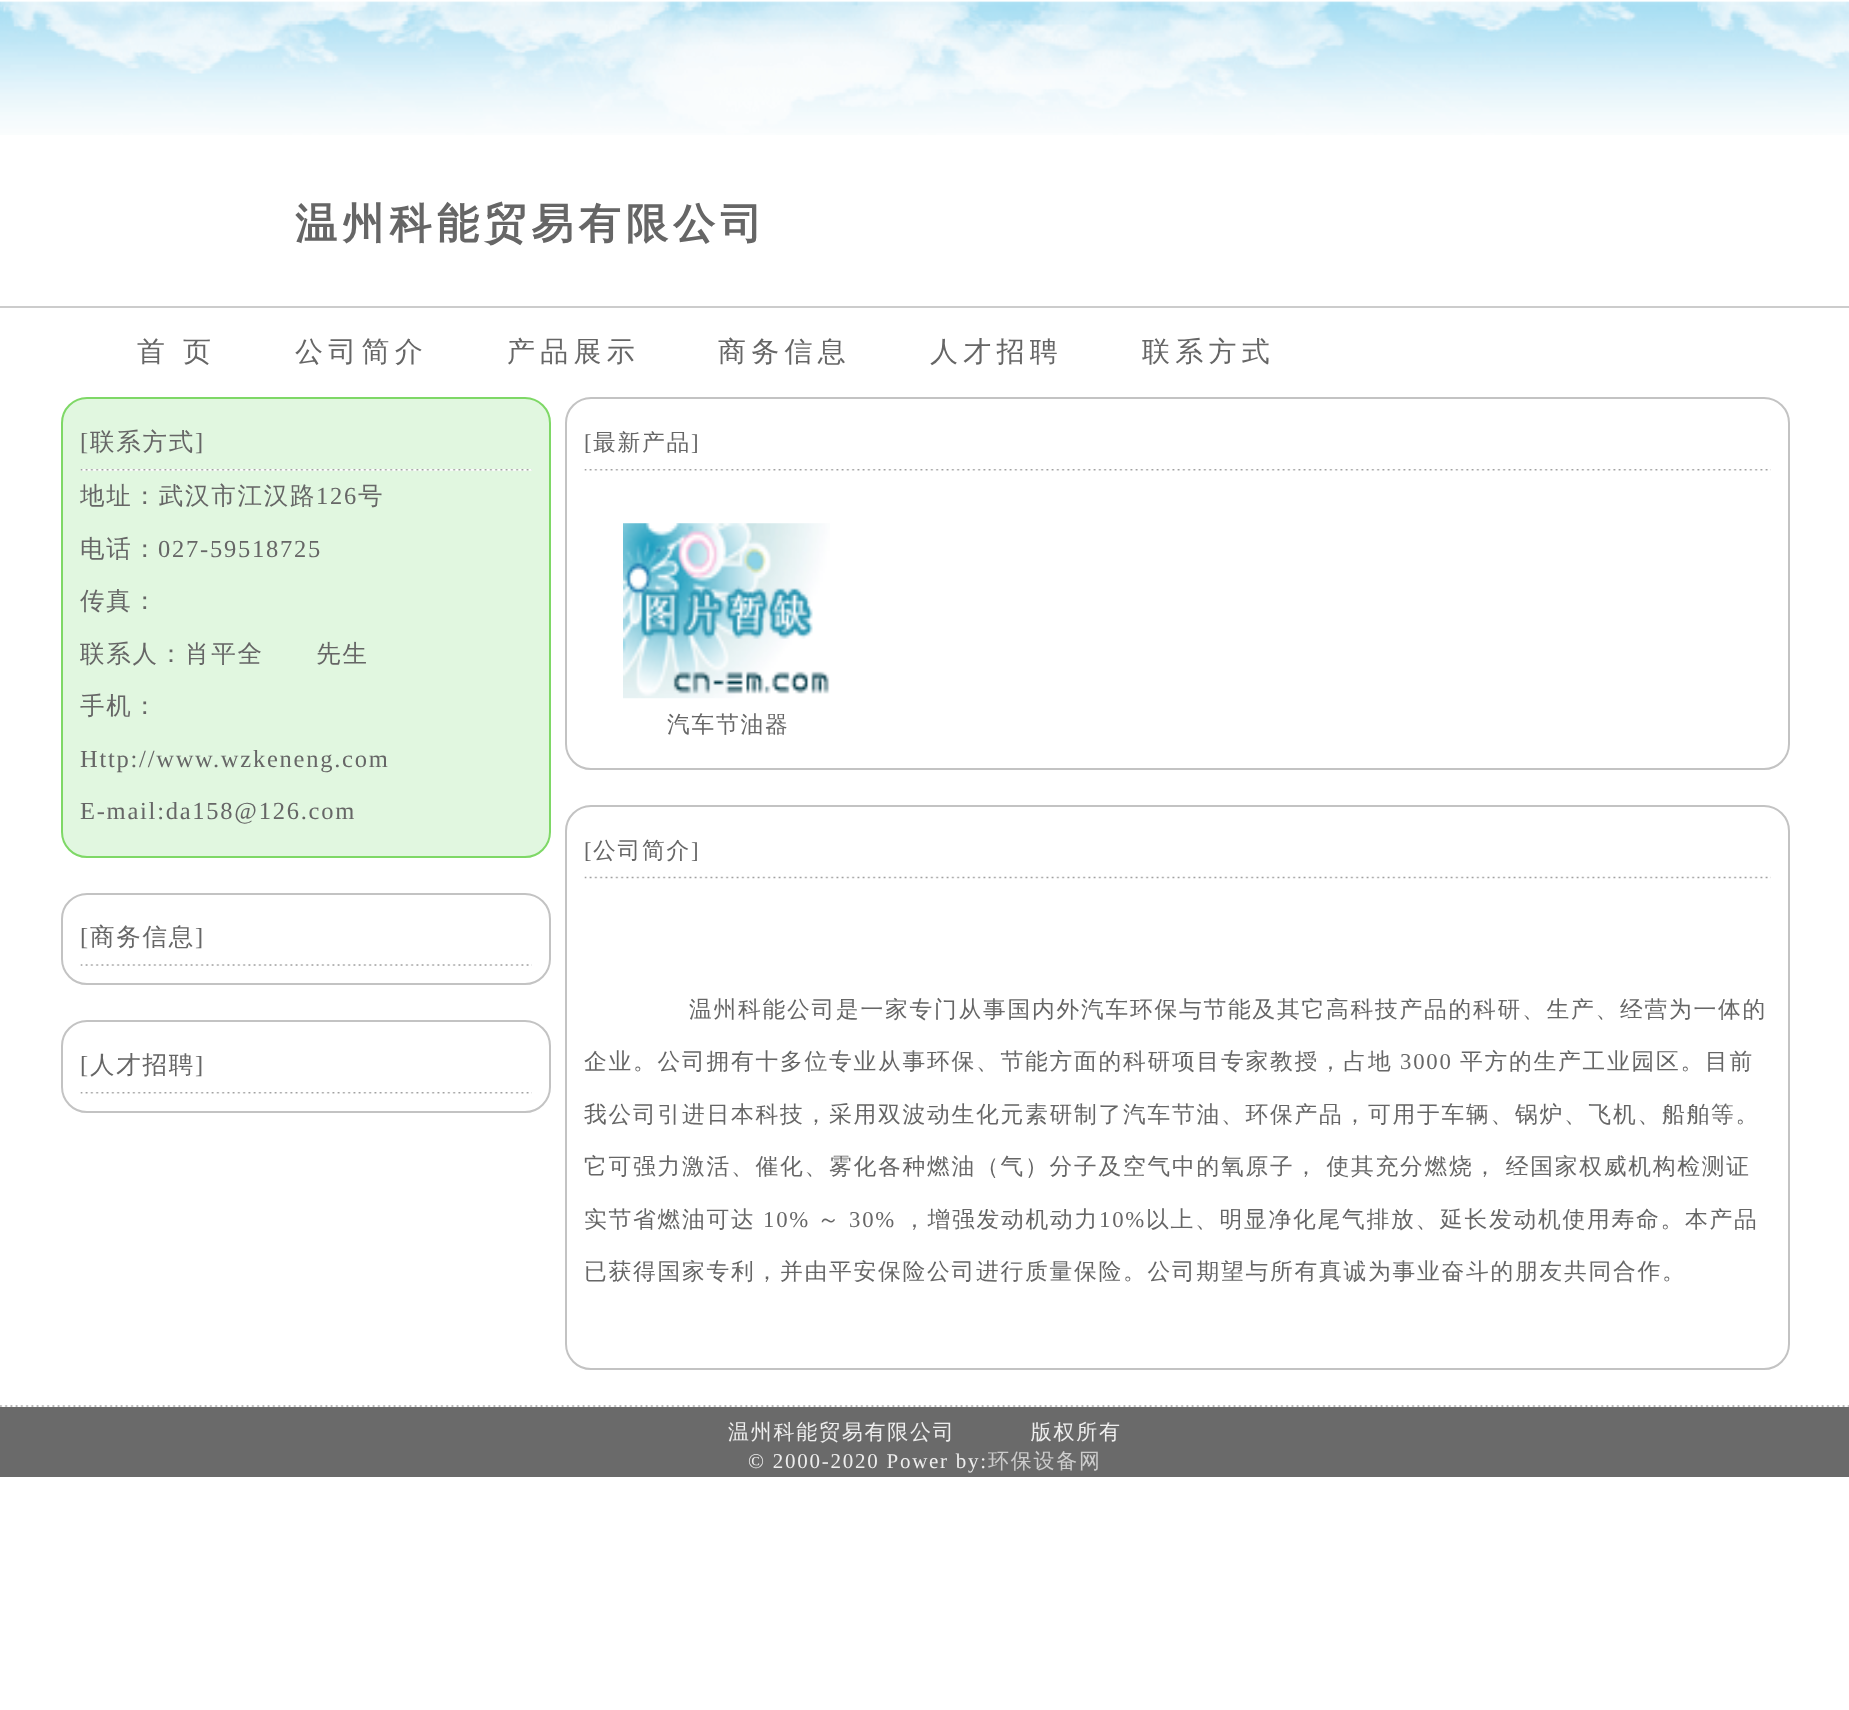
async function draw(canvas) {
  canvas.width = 1849;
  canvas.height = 1710;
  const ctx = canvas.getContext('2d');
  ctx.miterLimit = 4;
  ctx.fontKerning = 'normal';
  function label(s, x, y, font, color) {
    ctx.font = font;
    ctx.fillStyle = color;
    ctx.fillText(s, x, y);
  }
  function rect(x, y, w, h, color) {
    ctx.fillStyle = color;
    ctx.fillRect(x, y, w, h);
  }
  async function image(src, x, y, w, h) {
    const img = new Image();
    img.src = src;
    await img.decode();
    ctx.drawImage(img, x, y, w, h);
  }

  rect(0, 0, 1849, 1710, '#fff');
  await image('assets/img1.png', 0, 1, 1849, 134);
  ctx.letterSpacing = '5.25px';
  label('温州科能贸易有限公司', 295, 238, 'bold 42px WenQuanYi Zen Hei', '#666');
  rect(0, 306, 1849, 2, '#ccc');
  ctx.wordSpacing = '-1px';
  label('首 页', 137, 361, '500 28px WenQuanYi Zen Hei', '#666');
  ctx.wordSpacing = '0px';
  label('公司简介', 295, 361, '500 28px WenQuanYi Zen Hei', '#666');
  label('产品展示', 507, 361, '500 28px WenQuanYi Zen Hei', '#666');
  label('商务信息', 718, 361, '500 28px WenQuanYi Zen Hei', '#666');
  label('人才招聘', 930, 361, '500 28px WenQuanYi Zen Hei', '#666');
  label('联系方式', 1142, 361, '500 28px WenQuanYi Zen Hei', '#666');
  ctx.fillStyle = '#e1f7e0';
  ctx.beginPath();
  ctx.roundRect(62, 398, 488, 459, 25);
  ctx.fill();
  ctx.strokeStyle = '#7ed866';
  ctx.lineWidth = 2;
  ctx.stroke();
  ctx.letterSpacing = '1.75px';
  label('[', 80, 450, '24.5px Liberation Serif', '#666');
  label('联系方式', 90, 450, '500 24.5px WenQuanYi Zen Hei', '#666');
  label(']', 195, 450, '24.5px Liberation Serif', '#666');
  await image('assets/img2.png', 80, 469, 452, 2);
  label('地址：武汉市江汉路', 80, 504, '500 24.5px WenQuanYi Zen Hei', '#666');
  label('126', 316, 504, '24.5px Liberation Serif', '#666');
  label('号', 358, 504, '500 24.5px WenQuanYi Zen Hei', '#666');
  label('电话：', 80, 557, '500 24.5px WenQuanYi Zen Hei', '#666');
  label('027-59518725', 158, 557, '24.5px Liberation Serif', '#666');
  label('传真：', 80, 609, '500 24.5px WenQuanYi Zen Hei', '#666');
  label('联系人：肖平全　　先生', 80, 662, '500 24.5px WenQuanYi Zen Hei', '#666');
  label('手机：', 80, 714, '500 24.5px WenQuanYi Zen Hei', '#666');
  label('Http://www.wzkeneng.com', 80, 767, '24.5px Liberation Serif', '#666');
  label('E-mail:da158@126.com', 80, 819, '24.5px Liberation Serif', '#666');
  ctx.beginPath();
  ctx.roundRect(62, 894, 488, 90, 25);
  ctx.strokeStyle = '#c3c3c3';
  ctx.stroke();
  label('[', 80, 945, '24.5px Liberation Serif', '#666');
  label('商务信息', 90, 945, '500 24.5px WenQuanYi Zen Hei', '#666');
  label(']', 195, 945, '24.5px Liberation Serif', '#666');
  await image('assets/img3.png', 80, 964, 452, 2);
  ctx.beginPath();
  ctx.roundRect(62, 1021, 488, 91, 25);
  ctx.stroke();
  label('[', 80, 1073, '24.5px Liberation Serif', '#666');
  label('人才招聘', 90, 1073, '500 24.5px WenQuanYi Zen Hei', '#666');
  label(']', 195, 1073, '24.5px Liberation Serif', '#666');
  await image('assets/img4.png', 80, 1092, 452, 2);
  ctx.beginPath();
  ctx.roundRect(566, 398, 1223, 371, 25);
  ctx.stroke();
  label('[', 584, 450, '22.75px Liberation Serif', '#666');
  label('最新产品', 593, 450, '500 22.75px WenQuanYi Zen Hei', '#666');
  label(']', 691, 450, '22.75px Liberation Serif', '#666');
  await image('assets/img5.png', 584, 469, 1187, 2);
  await image('assets/img6.png', 623, 523, 207, 176);
  label('汽车节油器', 667, 732, '500 22.75px WenQuanYi Zen Hei', '#666');
  ctx.beginPath();
  ctx.roundRect(566, 806, 1223, 563, 25);
  ctx.stroke();
  label('[', 584, 858, '22.75px Liberation Serif', '#666');
  label('公司简介', 593, 858, '500 22.75px WenQuanYi Zen Hei', '#666');
  label(']', 691, 858, '22.75px Liberation Serif', '#666');
  await image('assets/img7.png', 584, 876, 1187, 3);
  label('温州科能公司是一家专门从事国内外汽车环保与节能及其它高科技产品的科研、生产、经营为一体的', 689, 1017, '500 22.75px WenQuanYi Zen Hei', '#666');
  label('企业。公司拥有十多位专业从事环保、节能方面的科研项目专家教授，占地', 584, 1069, '500 22.75px WenQuanYi Zen Hei', '#666');
  label('3000', 1400, 1069, '22.75px Liberation Serif', '#666');
  label('平方的生产工业园区。目前', 1460, 1069, '500 22.75px WenQuanYi Zen Hei', '#666');
  label('我公司引进日本科技，采用双波动生化元素研制了汽车节油、环保产品，可用于车辆、锅炉、飞机、船舶等。', 584, 1122, '500 22.75px WenQuanYi Zen Hei', '#666');
  ctx.wordSpacing = '-1px';
  label('它可强力激活、催化、雾化各种燃油（气）分子及空气中的氧原子， 使其充分燃烧， 经国家权威机构检测证', 584, 1174, '500 22.75px WenQuanYi Zen Hei', '#666');
  ctx.wordSpacing = '0px';
  label('实节省燃油可达', 584, 1227, '500 22.75px WenQuanYi Zen Hei', '#666');
  label('10%', 763, 1227, '22.75px Liberation Serif', '#666');
  label('～', 817, 1227, '500 22.75px WenQuanYi Zen Hei', '#666');
  label('30%', 849, 1227, '22.75px Liberation Serif', '#666');
  label('，增强发动机动力', 903, 1227, '500 22.75px WenQuanYi Zen Hei', '#666');
  label('10%', 1099, 1227, '22.75px Liberation Serif', '#666');
  label('以上、明显净化尾气排放、延长发动机使用寿命。本产品', 1146, 1227, '500 22.75px WenQuanYi Zen Hei', '#666');
  label('已获得国家专利，并由平安保险公司进行质量保险。公司期望与所有真诚为事业奋斗的朋友共同合作。', 584, 1279, '500 22.75px WenQuanYi Zen Hei', '#666');
  await image('assets/img8.png', 0, 1405, 1849, 2);
  rect(0, 1407, 1849, 70, '#6a6a6a');
  ctx.wordSpacing = '-1px';
  label('温州科能贸易有限公司 　　　版权所有', 728, 1439, '500 21px WenQuanYi Zen Hei', '#eee');
  ctx.wordSpacing = '0px';
  label('© 2000-2020 Power by:', 748, 1468, '21px Liberation Serif', '#eee');
  label('环保设备网', 988, 1468, '500 21px WenQuanYi Zen Hei', '#ccc');
}

draw(document.querySelector('canvas'));
